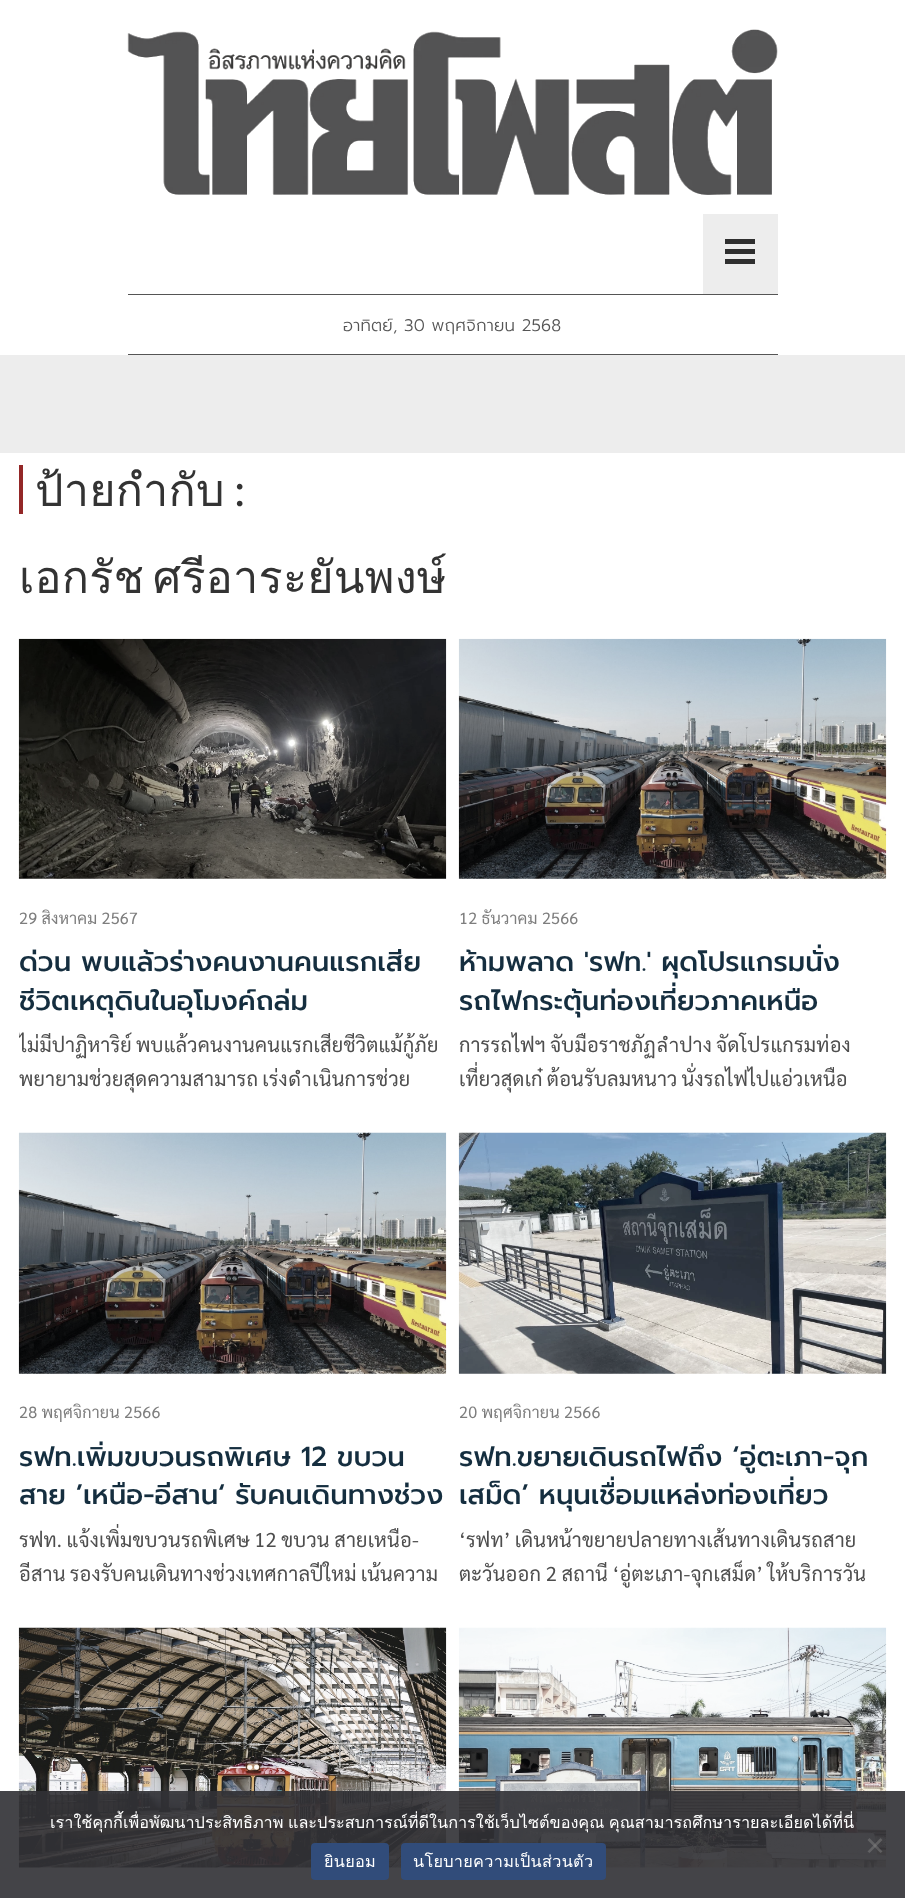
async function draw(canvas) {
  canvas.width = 905;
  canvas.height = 1898;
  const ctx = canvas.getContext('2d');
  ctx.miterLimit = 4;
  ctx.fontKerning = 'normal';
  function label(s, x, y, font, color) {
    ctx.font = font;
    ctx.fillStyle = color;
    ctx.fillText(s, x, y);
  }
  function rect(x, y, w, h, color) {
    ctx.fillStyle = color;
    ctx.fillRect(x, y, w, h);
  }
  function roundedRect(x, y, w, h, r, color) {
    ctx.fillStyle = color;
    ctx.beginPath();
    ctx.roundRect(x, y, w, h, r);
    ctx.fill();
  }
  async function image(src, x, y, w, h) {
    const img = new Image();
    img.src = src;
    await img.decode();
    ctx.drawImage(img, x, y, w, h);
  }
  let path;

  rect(0, 0, 905, 1898, '#fff');
  await image('assets/img1.png', 127, 29, 651, 166);
  rect(703, 214, 75, 80, '#ededed');
  rect(725, 239, 30, 5, '#2f2f2f');
  rect(725, 249, 30, 5, '#2f2f2f');
  rect(725, 259, 30, 5, '#2f2f2f');
  rect(128, 294, 650, 1, '#555');
  rect(128, 354, 650, 1, '#555');
  ctx.letterSpacing = '0.2px';
  label('อาทิตย์, 30 พฤศจิกายน 2568', 343, 331, '300 16.7px Prompt', '#555');
  rect(0, 355, 905, 98, '#ededed');
  rect(19, 465, 4, 49, '#932727');
  label('ป้ายกำกับ', 35, 506, '45px Loma', '#333');
  label(':', 234, 506, '45px Lato', '#333');
  ctx.wordSpacing = '-7px';
  label('เอกรัช ศรีอาระยันพงษ์', 19, 593, '45px Loma', '#333');
  await image('assets/img2.png', 18, 638, 429, 241);
  ctx.wordSpacing = '0px';
  label('29 สิงหาคม 2567', 19, 924, '16.25px Sarabun', '#7e7e7e');
  ctx.save();
  ctx.beginPath();
  ctx.rect(19, 944, 427, 77);
  ctx.clip();
  ctx.letterSpacing = '0px';
  label('ด่วน พบแล้วร่างคนงานคนแรกเสีย', 19, 971, '500 27.5px Prompt', '#152e3f');
  label('ชีวิตเหตุดินในอุโมงค์ถล่ม', 19, 1010, '500 27.5px Prompt', '#152e3f');
  ctx.restore();
  ctx.save();
  ctx.beginPath();
  ctx.rect(19, 1028, 427, 67);
  ctx.clip();
  ctx.wordSpacing = '-1px';
  label('ไม่มีปาฏิหาริย์ พบแล้วคนงานคนแรกเสียชีวิตแม้กู้ภัย', 19, 1052, '20px Sarabun', '#4e4e4e');
  ctx.restore();
  ctx.wordSpacing = '-1px';
  label('พยายามช่วยสุดความสามารถ เร่งดำเนินการช่วย', 19, 1086, '20px Sarabun', '#4e4e4e');
  await image('assets/img3.png', 458, 638, 429, 241);
  ctx.wordSpacing = '0px';
  label('12 ธันวาคม 2566', 459, 924, '16.25px Sarabun', '#7e7e7e');
  ctx.save();
  ctx.beginPath();
  ctx.rect(459, 944, 427, 77);
  ctx.clip();
  ctx.letterSpacing = '0px';
  label('ห้ามพลาด \'รฟท.\' ผุดโปรแกรมนั่ง', 459, 971, '500 27.5px Prompt', '#152e3f');
  ctx.restore();
  ctx.letterSpacing = '0px';
  label('รถไฟกระตุ้นท่องเที่ยวภาคเหนือ', 459, 1010, '500 27.5px Prompt', '#152e3f');
  ctx.letterSpacing = '0.2px';
  ctx.wordSpacing = '-1px';
  label('การรถไฟฯ จับมือราชภัฏลำปาง จัดโปรแกรมท่อง', 459, 1052, '20px Sarabun', '#4e4e4e');
  ctx.save();
  ctx.beginPath();
  ctx.rect(459, 1028, 427, 67);
  ctx.clip();
  label('เที่ยวสุดเก๋ ต้อนรับลมหนาว นั่งรถไฟไปแอ่วเหนือ', 459, 1086, '20px Sarabun', '#4e4e4e');
  ctx.restore();
  await image('assets/img4.png', 18, 1132, 429, 242);
  ctx.wordSpacing = '0px';
  label('28 พฤศจิกายน 2566', 19, 1418, '16.25px Sarabun', '#7e7e7e');
  ctx.letterSpacing = '0px';
  label('รฟท.เพิ่มขบวนรถพิเศษ 12 ขบวน', 19, 1466, '500 27.5px Prompt', '#152e3f');
  label('สาย ’เหนือ-อีสาน‘ รับคนเดินทางช่วง', 19, 1504, '500 27.5px Prompt', '#152e3f');
  ctx.letterSpacing = '0.2px';
  ctx.wordSpacing = '-0.5px';
  label('รฟท. แจ้งเพิ่มขบวนรถพิเศษ 12 ขบวน สายเหนือ-', 19, 1547, '20px Sarabun', '#4e4e4e');
  ctx.save();
  ctx.beginPath();
  ctx.rect(19, 1521, 427, 69);
  ctx.clip();
  ctx.wordSpacing = '-1px';
  label('อีสาน รองรับคนเดินทางช่วงเทศกาลปีใหม่ เน้นความ', 19, 1581, '20px Sarabun', '#4e4e4e');
  ctx.restore();
  await image('assets/img5.png', 458, 1132, 429, 242);
  ctx.wordSpacing = '0px';
  label('20 พฤศจิกายน 2566', 459, 1418, '16.25px Sarabun', '#7e7e7e');
  ctx.letterSpacing = '0px';
  label('รฟท.ขยายเดินรถไฟถึง ‘อู่ตะเภา-จุก', 459, 1466, '500 27.5px Prompt', '#152e3f');
  label('เสม็ด’ หนุนเชื่อมแหล่งท่องเที่ยว', 459, 1504, '500 27.5px Prompt', '#152e3f');
  ctx.letterSpacing = '0.2px';
  ctx.wordSpacing = '-1px';
  label('‘รฟท’ เดินหน้าขยายปลายทางเส้นทางเดินรถสาย', 459, 1547, '20px Sarabun', '#4e4e4e');
  ctx.wordSpacing = '-0.5px';
  label('ตะวันออก 2 สถานี ‘อู่ตะเภา-จุกเสม็ด’ ให้บริการวัน', 459, 1581, '20px Sarabun', '#4e4e4e');
  await image('assets/img6.png', 18, 1627, 429, 241);
  await image('assets/img7.png', 458, 1627, 429, 241);
  rect(0, 1791, 905, 107, '#323236e8');
  ctx.letterSpacing = '0px';
  ctx.wordSpacing = '-1px';
  label('เราใช้คุกกี้เพื่อพัฒนาประสิทธิภาพ และประสบการณ์ที่ดีในการใช้เว็บไซต์ของคุณ คุณสามารถศึกษารายละเอียดได้ที่นี่', 50, 1828, '16.25px Loma', '#fff');
  ctx.fillStyle = '#80808080';
  path = new Path2D('M880.5 1838L882.5 1840L869.5 1853L867.5 1851.5Z');
  ctx.fill(path);
  path = new Path2D('M867.5 1840L869.5 1838L882.5 1851.5L880.5 1853Z');
  ctx.fill(path);
  roundedRect(311, 1843, 78, 37, 4, '#314c7a');
  ctx.letterSpacing = '0.3px';
  ctx.wordSpacing = '0px';
  label('ยินยอม', 324, 1867, '16.25px Loma', '#fff');
  roundedRect(401, 1843, 205, 37, 4, '#314c7a');
  label('นโยบายความเป็นส่วนตัว', 413, 1867, '16.25px Loma', '#fff');
}

draw(document.querySelector('canvas'));
